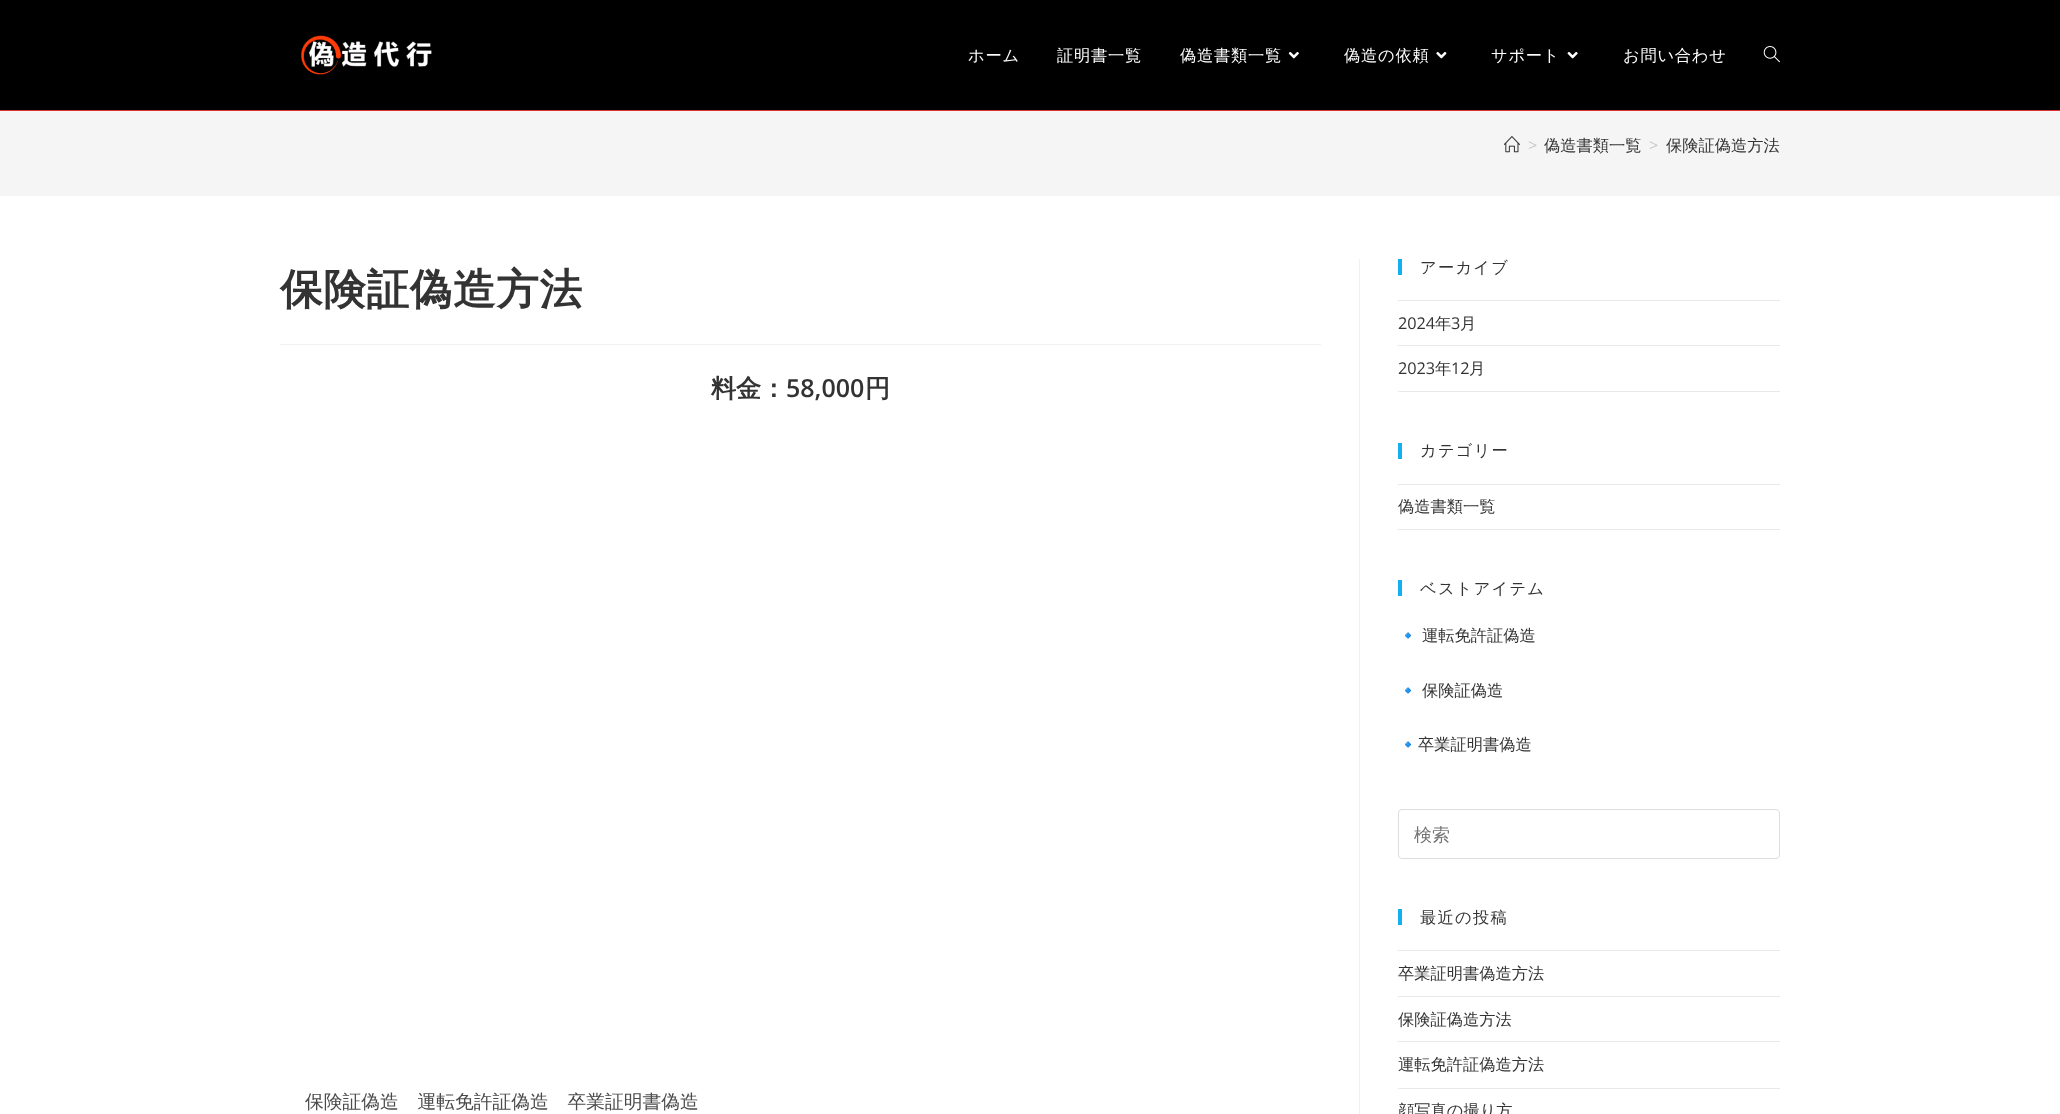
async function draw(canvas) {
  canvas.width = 2060;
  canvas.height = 1114;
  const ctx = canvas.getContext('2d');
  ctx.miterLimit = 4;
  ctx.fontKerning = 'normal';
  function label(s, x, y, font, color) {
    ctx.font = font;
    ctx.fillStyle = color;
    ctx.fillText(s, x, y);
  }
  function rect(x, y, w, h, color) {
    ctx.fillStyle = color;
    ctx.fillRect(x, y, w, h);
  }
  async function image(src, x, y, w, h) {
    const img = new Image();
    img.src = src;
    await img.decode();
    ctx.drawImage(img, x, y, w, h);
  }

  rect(0, 0, 2060, 1114, '#fff');
  rect(0, 0, 2060, 110, '#000');
  rect(0, 110, 2060, 1, '#d33');
  await image('assets/img1.png', 301, 35, 131, 40);
  ctx.letterSpacing = '0.75px';
  label('ホーム', 968, 61, '500 16.25px WenQuanYi Zen Hei', '#fff');
  label('証明書一覧', 1057, 61, '500 16.25px WenQuanYi Zen Hei', '#fff');
  label('偽造書類一覧', 1180, 61, '500 16.25px WenQuanYi Zen Hei', '#fff');
  await image('assets/img2.png', 1288, 51, 11, 8);
  label('偽造の依頼', 1344, 61, '500 16.25px WenQuanYi Zen Hei', '#fff');
  await image('assets/img3.png', 1436, 51, 11, 8);
  label('サポート', 1491, 61, '500 16.25px WenQuanYi Zen Hei', '#fff');
  await image('assets/img4.png', 1567, 51, 11, 8);
  label('お問い合わせ', 1623, 61, '500 16.25px WenQuanYi Zen Hei', '#fff');
  await image('assets/img5.png', 1763, 46, 17, 17);
  rect(0, 111, 2060, 85, '#f5f5f5');
  await image('assets/img6.png', 1504, 136, 16, 17);
  ctx.letterSpacing = '0px';
  label('>', 1528, 151, '16.25px Open Sans', '#c6c6c6');
  label('偽造書類一覧', 1544, 151, '500 16.25px WenQuanYi Zen Hei', '#333');
  label('>', 1649, 151, '16.25px Open Sans', '#c6c6c6');
  label('保険証偽造方法', 1666, 151, '500 16.25px WenQuanYi Zen Hei', '#333');
  rect(1359, 259, 1, 855, '#f1f1f1');
  rect(280, 344, 1041, 1, '#f1f1f1');
  ctx.letterSpacing = '0.75px';
  label('保険証偽造方法', 280, 304, 'bold 42.5px WenQuanYi Zen Hei', '#333');
  ctx.letterSpacing = '0px';
  label('料金：', 711, 397, 'bold 25px WenQuanYi Zen Hei', '#333');
  label('58,000', 786, 397, '600 25px Open Sans', '#333');
  label('円', 865, 397, 'bold 25px WenQuanYi Zen Hei', '#333');
  label('保険証偽造　運転免許証偽造　卒業証明書偽造', 305, 1108, '500 18.75px WenQuanYi Zen Hei', '#4a4a4a');
  rect(1398, 259, 4, 16, '#13aff0');
  ctx.letterSpacing = '1.25px';
  label('アーカイブ', 1420, 273, '500 16.25px WenQuanYi Zen Hei', '#333');
  rect(1398, 300, 382, 1, '#e9e9e9');
  rect(1398, 345, 382, 1, '#e9e9e9');
  ctx.letterSpacing = '0px';
  label('2024', 1398, 329, '16.25px Open Sans', '#333');
  label('年', 1435, 329, '500 16.25px WenQuanYi Zen Hei', '#333');
  label('3', 1451, 329, '16.25px Open Sans', '#333');
  label('月', 1460, 329, '500 16.25px WenQuanYi Zen Hei', '#333');
  rect(1398, 391, 382, 1, '#e9e9e9');
  label('2023', 1398, 374, '16.25px Open Sans', '#333');
  label('年', 1435, 374, '500 16.25px WenQuanYi Zen Hei', '#333');
  label('12', 1451, 374, '16.25px Open Sans', '#333');
  label('月', 1469, 374, '500 16.25px WenQuanYi Zen Hei', '#333');
  rect(1398, 443, 4, 16, '#13aff0');
  ctx.letterSpacing = '1.25px';
  label('カテゴリー', 1420, 456, '500 16.25px WenQuanYi Zen Hei', '#333');
  rect(1398, 484, 382, 1, '#e9e9e9');
  rect(1398, 529, 382, 1, '#e9e9e9');
  ctx.letterSpacing = '0px';
  label('偽造書類一覧', 1398, 512, '500 16.25px WenQuanYi Zen Hei', '#333');
  rect(1398, 580, 4, 16, '#13aff0');
  ctx.letterSpacing = '1.25px';
  label('ベストアイテム', 1420, 594, '500 16.25px WenQuanYi Zen Hei', '#333');
  ctx.letterSpacing = '0px';
  label('🔹', 1398, 641, '16.25px Noto Color Emoji', '#333');
  label('運転免許証偽造', 1422, 641, '500 16.25px WenQuanYi Zen Hei', '#333');
  label('🔹', 1398, 696, '16.25px Noto Color Emoji', '#333');
  label('保険証偽造', 1422, 696, '500 16.25px WenQuanYi Zen Hei', '#333');
  label('🔹', 1398, 750, '16.25px Noto Color Emoji', '#333');
  label('卒業証明書偽造', 1418, 750, '500 16.25px WenQuanYi Zen Hei', '#333');
  ctx.beginPath();
  ctx.roundRect(1398.5, 809.5, 381, 49, 3.5);
  ctx.strokeStyle = '#ddd';
  ctx.stroke();
  label('検索', 1414, 841, '500 18px WenQuanYi Zen Hei', '#757575');
  rect(1398, 909, 4, 16, '#13aff0');
  ctx.letterSpacing = '1.25px';
  label('最近の投稿', 1420, 923, '500 16.25px WenQuanYi Zen Hei', '#333');
  rect(1398, 950, 382, 1, '#e9e9e9');
  rect(1398, 996, 382, 1, '#e9e9e9');
  ctx.letterSpacing = '0px';
  label('卒業証明書偽造方法', 1398, 979, '500 16.25px WenQuanYi Zen Hei', '#333');
  rect(1398, 1041, 382, 1, '#e9e9e9');
  label('保険証偽造方法', 1398, 1025, '500 16.25px WenQuanYi Zen Hei', '#333');
  rect(1398, 1088, 382, 1, '#e9e9e9');
  label('運転免許証偽造方法', 1398, 1070, '500 16.25px WenQuanYi Zen Hei', '#333');
  label('顔写真の撮り方', 1398, 1116, '500 16.25px WenQuanYi Zen Hei', '#333');
}

draw(document.querySelector('canvas'));
